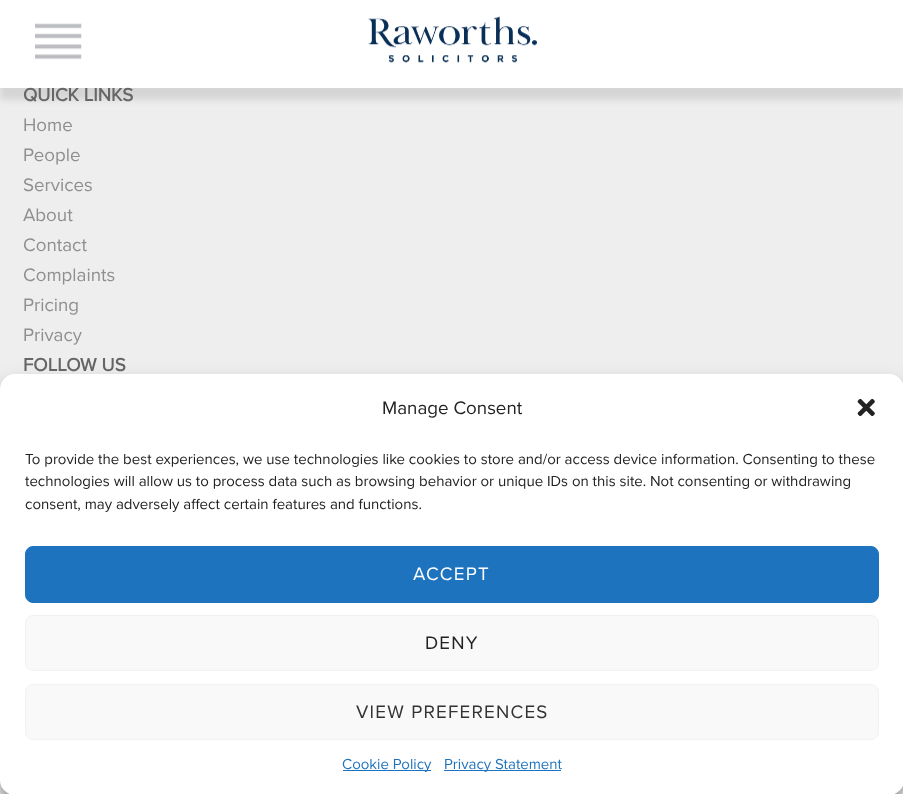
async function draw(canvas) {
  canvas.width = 903;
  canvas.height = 794;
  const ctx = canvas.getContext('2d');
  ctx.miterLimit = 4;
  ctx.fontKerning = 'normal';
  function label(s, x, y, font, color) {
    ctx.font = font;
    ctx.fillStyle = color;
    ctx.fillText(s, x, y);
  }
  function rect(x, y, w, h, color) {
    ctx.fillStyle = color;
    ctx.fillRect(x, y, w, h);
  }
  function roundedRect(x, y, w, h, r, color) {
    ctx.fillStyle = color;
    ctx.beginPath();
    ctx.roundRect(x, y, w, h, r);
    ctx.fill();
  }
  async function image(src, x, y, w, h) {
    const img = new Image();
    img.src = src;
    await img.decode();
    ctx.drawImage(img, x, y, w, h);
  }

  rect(0, 0, 903, 794, '#eee');
  ctx.fillStyle = '#0000001a';
  ctx.filter = 'blur(3px)';
  ctx.beginPath();
  ctx.rect(0, 13, 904, 87);
  ctx.fill();
  ctx.filter = 'none';
  rect(0, 0, 903, 88, '#fff');
  await image('assets/img1.png', 35, 23, 47, 37);
  await image('assets/img2.png', 368, 16, 169, 47);
  label('QUICK LINKS', 23, 101, 'bold 18.75px Proxima Nova', '#666');
  label('Home', 23, 131, '18.75px Proxima Nova', '#8f8f8f');
  label('People', 23, 161, '18.75px Proxima Nova', '#8f8f8f');
  label('Services', 23, 191, '18.75px Proxima Nova', '#8f8f8f');
  label('About', 23, 221, '18.75px Proxima Nova', '#8f8f8f');
  label('Contact', 23, 251, '18.75px Proxima Nova', '#8f8f8f');
  label('Complaints', 23, 281, '18.75px Proxima Nova', '#8f8f8f');
  label('Pricing', 23, 311, '18.75px Proxima Nova', '#8f8f8f');
  label('Privacy', 23, 341, '18.75px Proxima Nova', '#8f8f8f');
  label('FOLLOW US', 23, 371, 'bold 18.75px Proxima Nova', '#666');
  rect(0, 780, 903, 14, '#f2f2f2');
  ctx.fillStyle = '#0000003b';
  ctx.filter = 'blur(4px)';
  ctx.beginPath();
  ctx.roundRect(0, 381, 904, 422, 15);
  ctx.fill();
  ctx.filter = 'none';
  ctx.fillStyle = '#00000030';
  ctx.filter = 'blur(12.5px)';
  ctx.beginPath();
  ctx.roundRect(0, 386, 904, 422, 15);
  ctx.fill();
  ctx.filter = 'none';
  roundedRect(0, 374, 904, 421, 15, '#fff');
  label('Manage Consent', 382, 414, '18.75px Proxima Nova', '#222');
  await image('assets/img3.png', 857, 398, 18, 19);
  label('To provide the best experiences, we use technologies like cookies to store and/or access device information. Consenting to these', 25, 464, '15px Proxima Nova', '#222');
  label('technologies will allow us to process data such as browsing behavior or unique IDs on this site. Not consenting or withdrawing', 25, 486, '15px Proxima Nova', '#222');
  label('consent, may adversely affect certain features and functions.', 25, 509, '15px Proxima Nova', '#222');
  ctx.fillStyle = '#1e73be';
  ctx.beginPath();
  ctx.roundRect(25.5, 546.5, 853, 56, 7.5);
  ctx.fill();
  ctx.strokeStyle = '#1e73be';
  ctx.stroke();
  ctx.letterSpacing = '1.25px';
  label('ACCEPT', 413, 580, '18.75px Proxima Nova', '#fff');
  ctx.fillStyle = '#f9f9f9';
  ctx.beginPath();
  ctx.roundRect(25.5, 615.5, 853, 55, 7.5);
  ctx.fill();
  ctx.strokeStyle = '#f2f2f2';
  ctx.stroke();
  label('DENY', 425, 649, '18.75px Proxima Nova', '#222');
  ctx.fillStyle = '#f9f9f9';
  ctx.beginPath();
  ctx.roundRect(25.5, 684.5, 853, 55, 7.5);
  ctx.fill();
  ctx.stroke();
  label('VIEW PREFERENCES', 356, 718, '18.75px Proxima Nova', '#333');
  rect(343, 770, 88, 1, '#1e73be');
  ctx.letterSpacing = '0px';
  label('Cookie Policy', 342, 769, '15px Proxima Nova', '#1e73be');
  rect(444, 770, 117, 1, '#1e73be');
  label('Privacy Statement', 444, 769, '15px Proxima Nova', '#1e73be');
}

draw(document.querySelector('canvas'));
